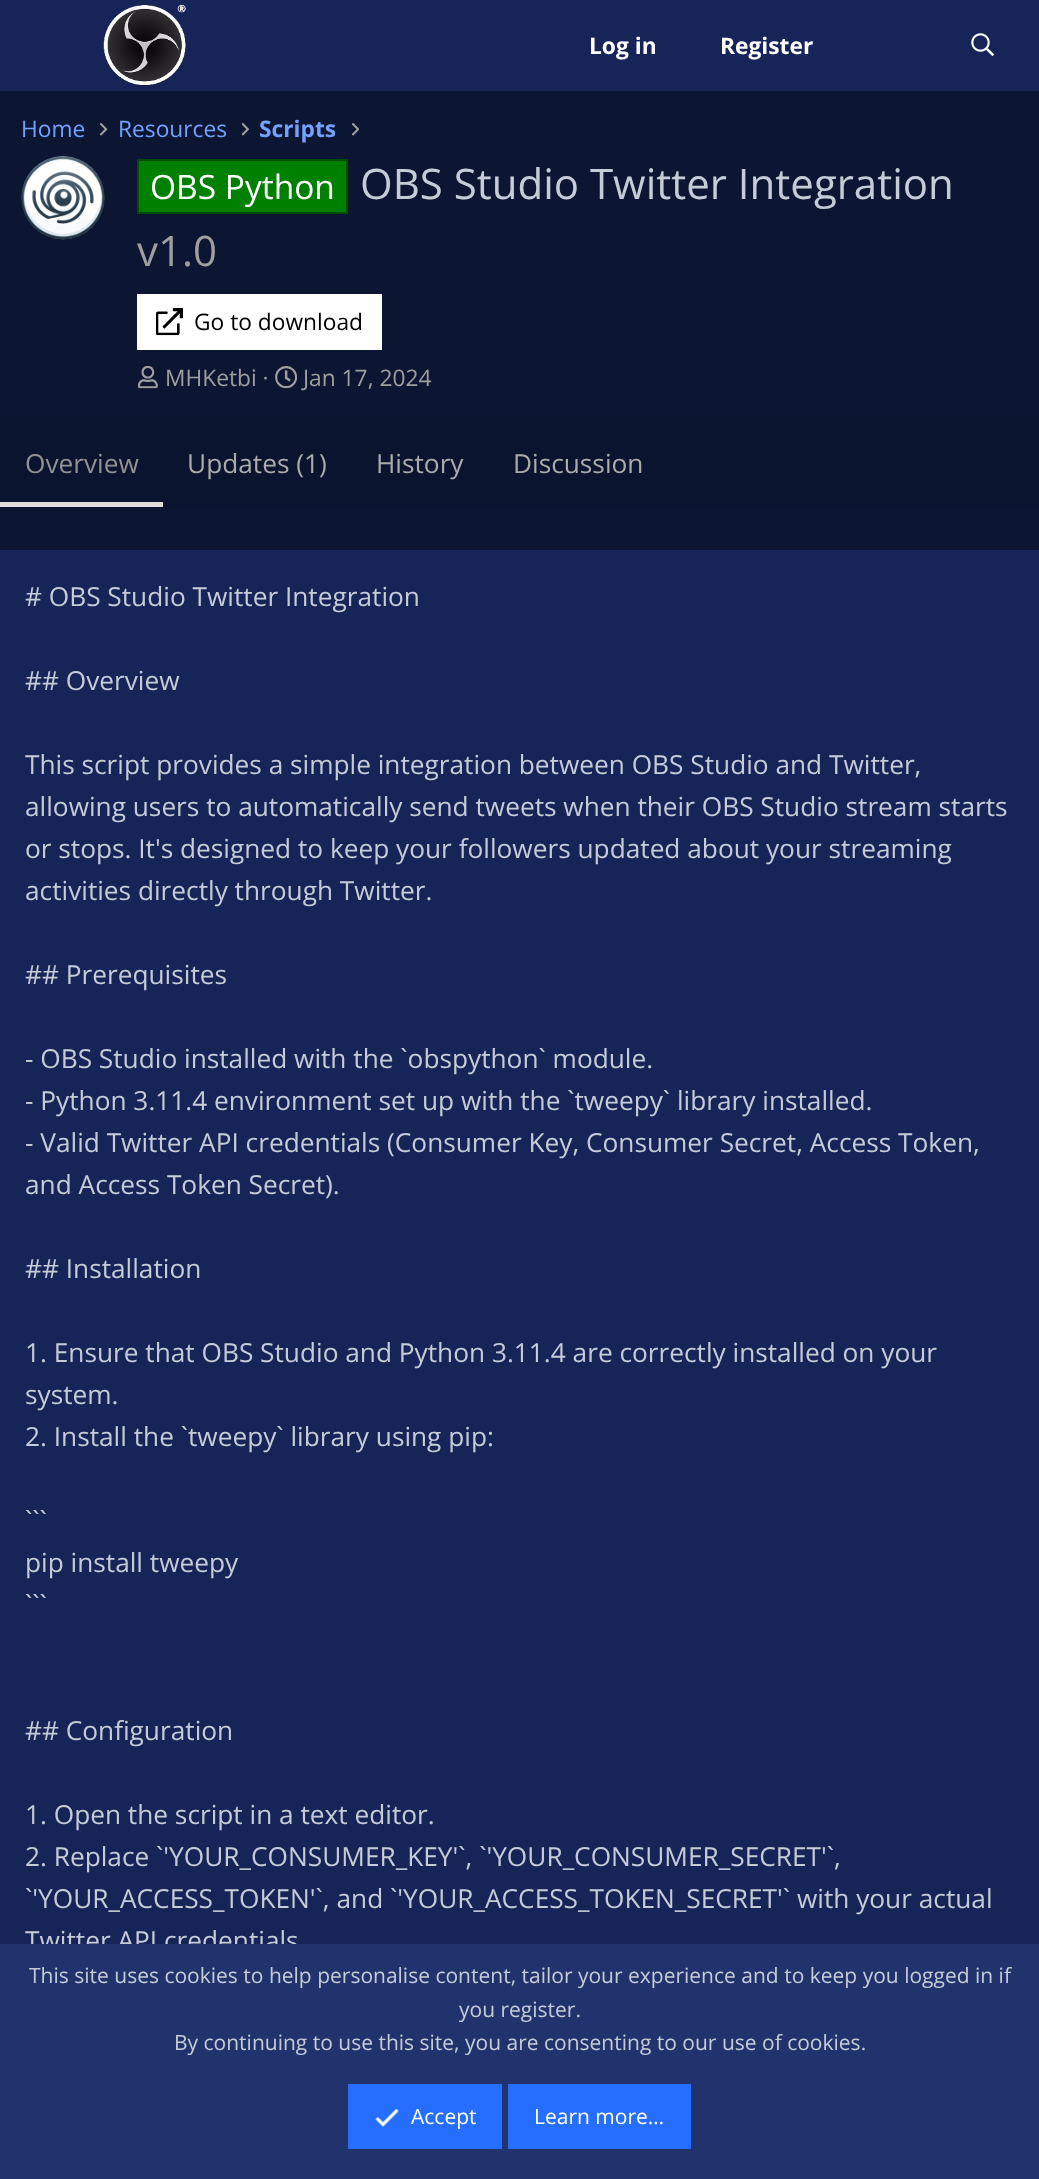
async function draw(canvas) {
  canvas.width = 1039;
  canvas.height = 2179;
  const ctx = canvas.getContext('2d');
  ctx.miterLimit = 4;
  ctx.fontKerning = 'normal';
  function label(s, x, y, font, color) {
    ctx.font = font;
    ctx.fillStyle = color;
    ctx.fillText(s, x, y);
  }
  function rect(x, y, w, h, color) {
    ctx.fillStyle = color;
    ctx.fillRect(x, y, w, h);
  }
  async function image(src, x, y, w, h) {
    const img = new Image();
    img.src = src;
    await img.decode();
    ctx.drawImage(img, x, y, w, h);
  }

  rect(0, 0, 1039, 2179, '#0c1633');
  rect(0, 0, 1039, 91, '#162458');
  await image('assets/img1.png', 103, 4, 83, 83);
  label('Log in', 589, 54, 'bold 22.75px Open Sans', '#fff');
  label('Register', 720, 54, 'bold 22.75px Open Sans', '#fff');
  await image('assets/img2.png', 971, 33, 23, 23);
  label('Home', 21, 137, '22.75px Open Sans', '#72a2ff');
  await image('assets/img3.png', 100, 122, 8, 14);
  label('Resources', 118, 137, '22.75px Open Sans', '#72a2ff');
  await image('assets/img4.png', 242, 122, 7, 14);
  label('Scripts', 259, 137, 'bold 22.75px Open Sans', '#72a2ff');
  await image('assets/img5.png', 352, 122, 7, 14);
  ctx.fillStyle = '#080f22';
  ctx.beginPath();
  ctx.arc(63, 198, 42, 0, 2 * Math.PI);
  ctx.fill();
  await image('assets/img6.png', 21, 156, 84, 84);
  ctx.fillStyle = '#008000';
  ctx.beginPath();
  ctx.rect(138, 160, 209, 53);
  ctx.fill();
  ctx.strokeStyle = '#004d00';
  ctx.lineWidth = 2;
  ctx.stroke();
  label('OBS Python', 150, 199, '33.5px Open Sans', '#fff');
  label('OBS Studio Twitter Integration', 360, 199, '42px Open Sans', '#c6ccd7');
  label('v1.0', 137, 266, '42px Open Sans', '#9f9f9f');
  rect(137, 294, 245, 56, '#fff');
  await image('assets/img7.png', 156, 308, 27, 28);
  label('Go to download', 194, 330, '22.75px Open Sans', '#000');
  await image('assets/img8.png', 137, 366, 21, 23);
  label('MHKetbi ·', 165, 386, '22.75px Open Sans', '#9f9f9f');
  await image('assets/img9.png', 275, 366, 22, 23);
  label('Jan 17, 2024', 303, 386, '22.75px Open Sans', '#9f9f9f');
  rect(0, 417, 1039, 91, '#0b142f');
  rect(0, 502, 163, 5, '#dedede');
  label('Overview', 25, 473, '26.25px Open Sans', '#929292');
  label('Updates (1)', 187, 473, '26.25px Open Sans', '#ababab');
  label('History', 376, 473, '26.25px Open Sans', '#ababab');
  label('Discussion', 513, 473, '26.25px Open Sans', '#ababab');
  rect(0, 550, 1039, 1394, '#162458');
  label('# OBS Studio Twitter Integration', 25, 606, '26.25px Open Sans', '#c6ccd7');
  label('## Overview', 25, 690, '26.25px Open Sans', '#c6ccd7');
  label('This script provides a simple integration between OBS Studio and Twitter,', 25, 774, '26.25px Open Sans', '#c6ccd7');
  label('allowing users to automatically send tweets when their OBS Studio stream starts', 25, 816, '26.25px Open Sans', '#c6ccd7');
  label('or stops. It\'s designed to keep your followers updated about your streaming', 25, 858, '26.25px Open Sans', '#c6ccd7');
  label('activities directly through Twitter.', 25, 900, '26.25px Open Sans', '#c6ccd7');
  label('## Prerequisites', 25, 984, '26.25px Open Sans', '#c6ccd7');
  label('- OBS Studio installed with the `obspython` module.', 25, 1068, '26.25px Open Sans', '#c6ccd7');
  label('- Python 3.11.4 environment set up with the `tweepy` library installed.', 25, 1110, '26.25px Open Sans', '#c6ccd7');
  label('- Valid Twitter API credentials (Consumer Key, Consumer Secret, Access Token,', 25, 1152, '26.25px Open Sans', '#c6ccd7');
  label('and Access Token Secret).', 25, 1194, '26.25px Open Sans', '#c6ccd7');
  label('## Installation', 25, 1278, '26.25px Open Sans', '#c6ccd7');
  label('1. Ensure that OBS Studio and Python 3.11.4 are correctly installed on your', 25, 1362, '26.25px Open Sans', '#c6ccd7');
  label('system.', 25, 1404, '26.25px Open Sans', '#c6ccd7');
  label('2. Install the `tweepy` library using pip:', 25, 1446, '26.25px Open Sans', '#c6ccd7');
  label('```', 25, 1530, '26.25px Open Sans', '#c6ccd7');
  label('pip install tweepy', 25, 1572, '26.25px Open Sans', '#c6ccd7');
  label('```', 25, 1614, '26.25px Open Sans', '#c6ccd7');
  label('## Configuration', 25, 1740, '26.25px Open Sans', '#c6ccd7');
  label('1. Open the script in a text editor.', 25, 1824, '26.25px Open Sans', '#c6ccd7');
  label('2. Replace `\'YOUR_CONSUMER_KEY\'`, `\'YOUR_CONSUMER_SECRET\'`,', 25, 1866, '26.25px Open Sans', '#c6ccd7');
  label('`\'YOUR_ACCESS_TOKEN\'`, and `\'YOUR_ACCESS_TOKEN_SECRET\'` with your actual', 25, 1908, '26.25px Open Sans', '#c6ccd7');
  label('Twitter API credentials', 25, 1950, '26.25px Open Sans', '#c6ccd7');
  rect(0, 1944, 1039, 235, '#20336d');
  label('This site uses cookies to help personalise content, tailor your experience and to keep you logged in if', 29, 1983, '21px Open Sans', '#c6ccd7');
  label('you register.', 459, 2017, '21px Open Sans', '#c6ccd7');
  label('By continuing to use this site, you are consenting to our use of cookies.', 174, 2050, '21px Open Sans', '#c6ccd7');
  rect(348, 2084, 154, 65, '#256eff');
  await image('assets/img10.png', 375, 2109, 24, 18);
  label('Accept', 411, 2124, '21px Open Sans', '#fff');
  rect(508, 2084, 183, 65, '#256eff');
  label('Learn more…', 534, 2124, '21px Open Sans', '#fff');
}

draw(document.querySelector('canvas'));
